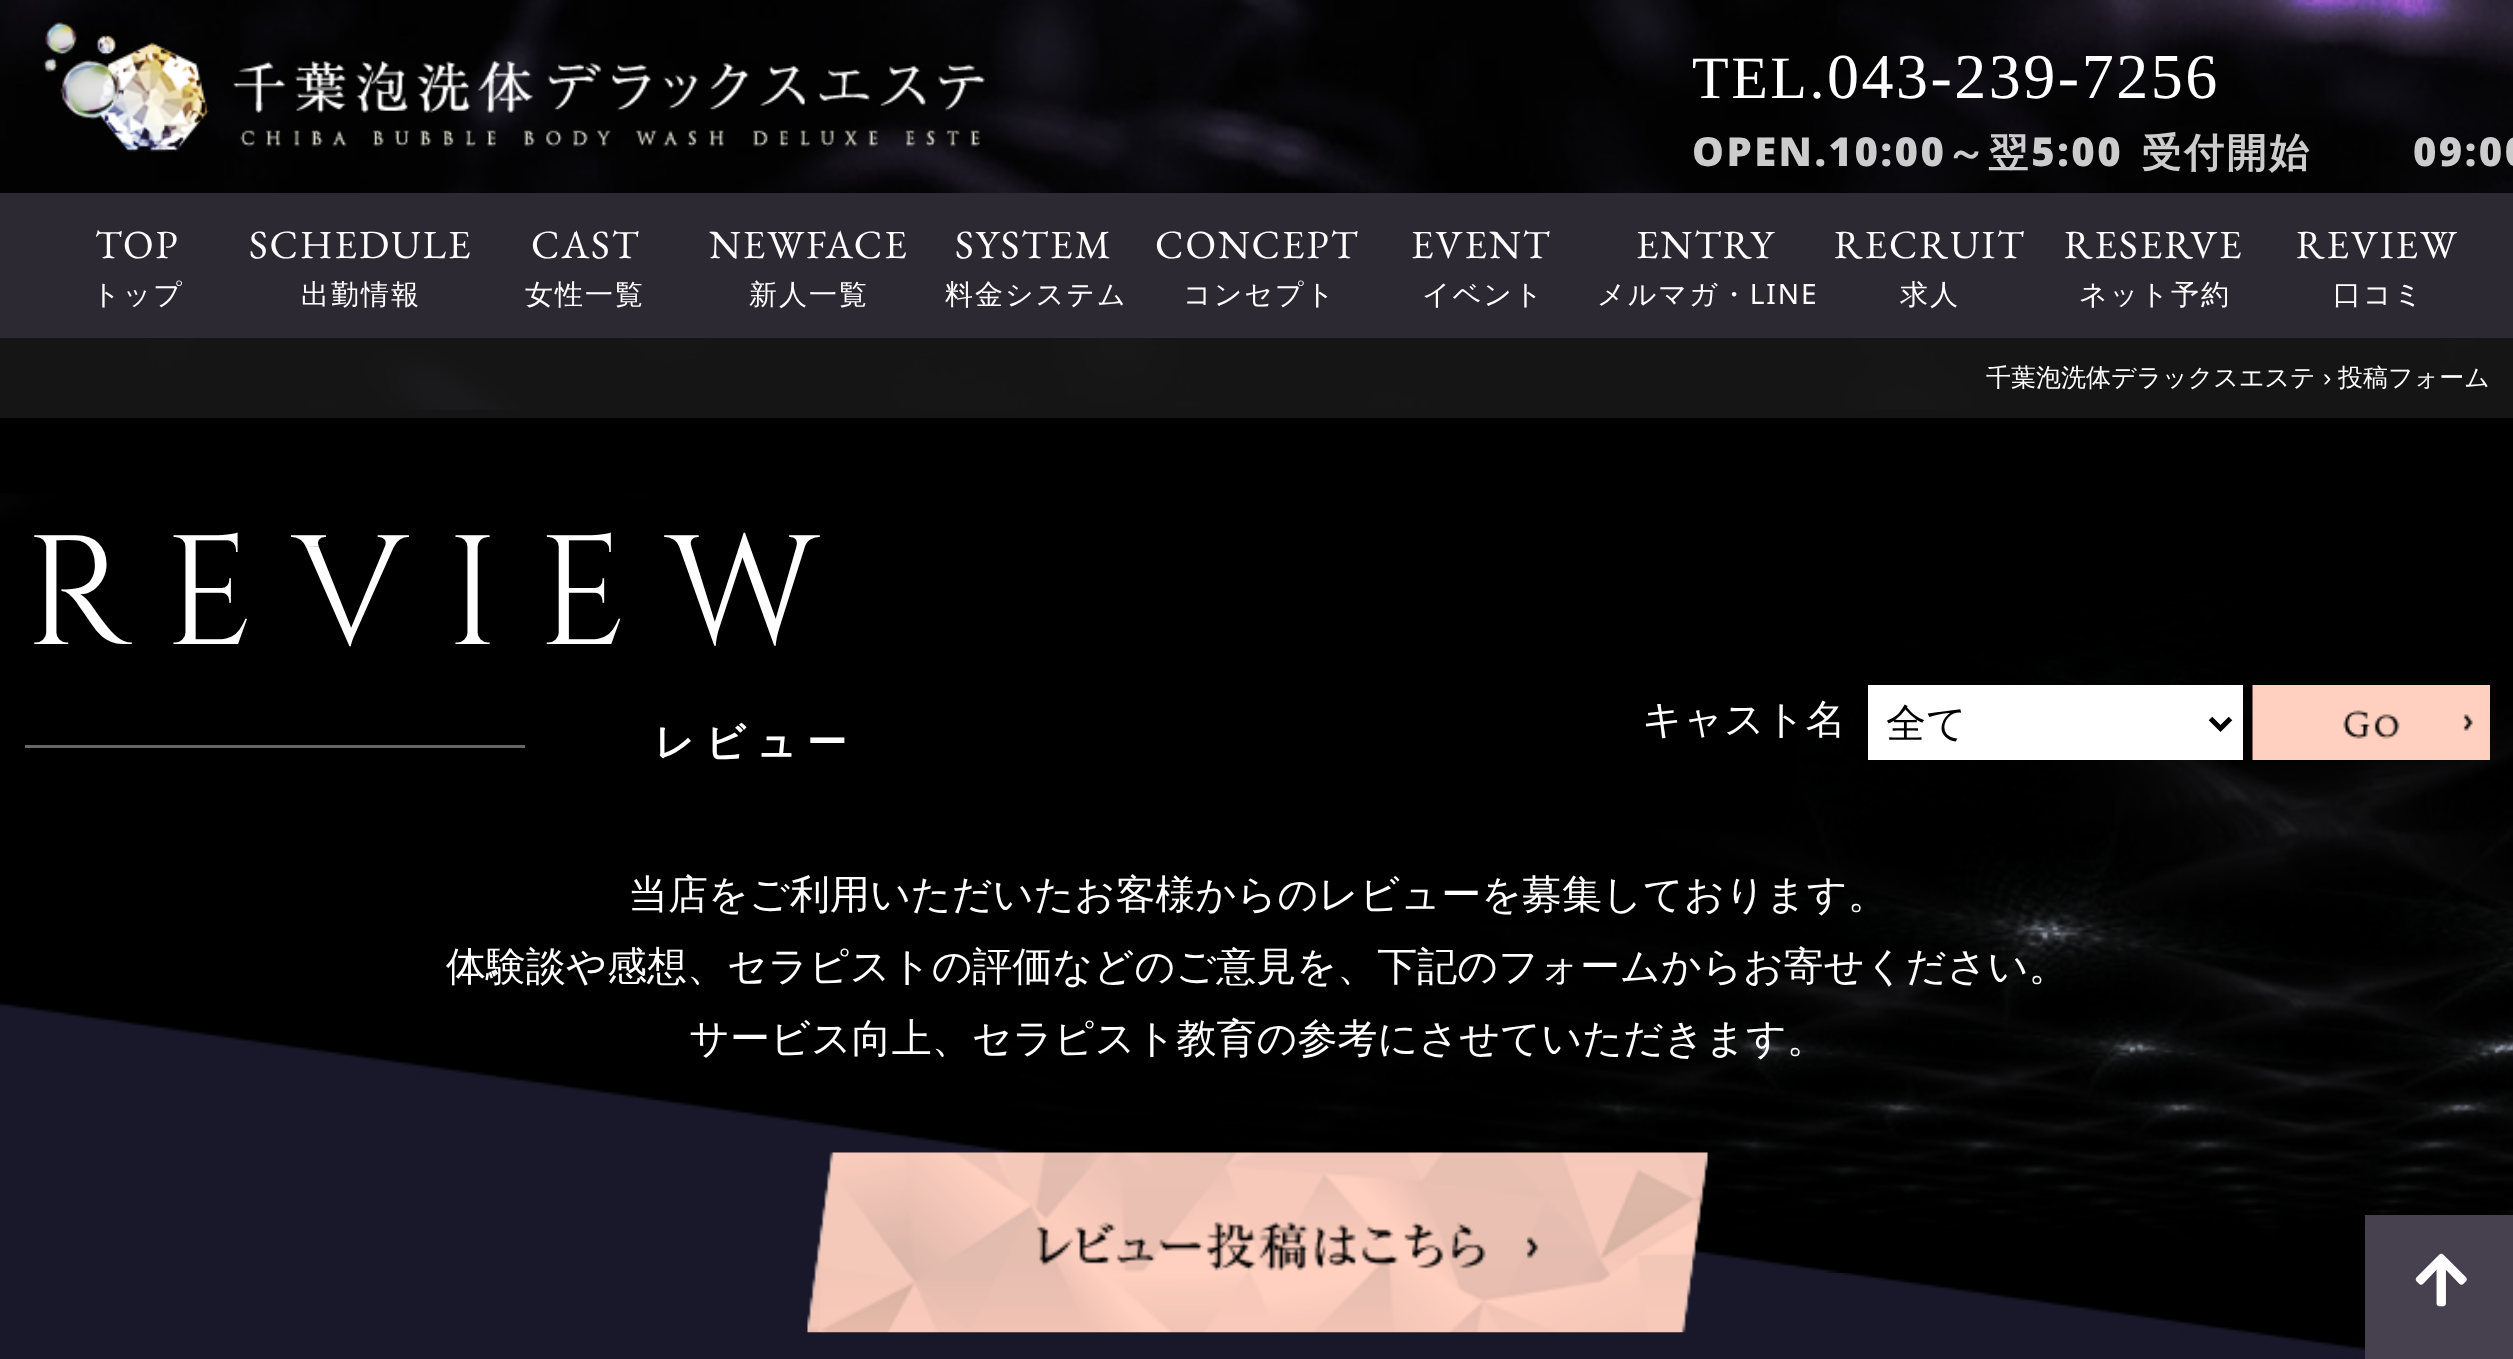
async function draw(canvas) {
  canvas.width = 2513;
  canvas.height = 1359;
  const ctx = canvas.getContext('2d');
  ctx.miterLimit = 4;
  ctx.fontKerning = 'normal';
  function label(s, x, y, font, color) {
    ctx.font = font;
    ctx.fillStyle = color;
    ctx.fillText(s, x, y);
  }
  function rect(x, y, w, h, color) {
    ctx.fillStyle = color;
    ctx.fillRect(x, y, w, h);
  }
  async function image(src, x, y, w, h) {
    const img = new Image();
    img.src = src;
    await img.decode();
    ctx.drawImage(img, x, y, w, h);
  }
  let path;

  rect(0, 0, 2513, 1359, '#000');
  await image('assets/img1.png', 0, 0, 2513, 411);
  await image('assets/img2.png', 43, 22, 942, 130);
  ctx.letterSpacing = '2.5px';
  label('TEL.', 1692, 98, '60px Liberation Serif', '#fff');
  label('043-239-7256', 1827, 98, '64px Liberation Serif', '#fff');
  label('OPEN.10:00～翌5:00', 1692, 166, '900 40px Noto Sans', '#ccc');
  ctx.wordSpacing = '88px';
  label('受付開始 09:00～', 2142, 166, '900 40px Noto Sans', '#ccc');
  rect(0, 193, 2513, 145, '#2d2932');
  ctx.letterSpacing = '2px';
  ctx.wordSpacing = '0px';
  label('TOP', 95, 258, '40px EB Garamond', '#fff');
  label('トップ', 92, 304, '28px Noto Sans', '#fff');
  label('SCHEDULE', 249, 258, '40px EB Garamond', '#fff');
  label('出勤情報', 301, 304, '28px Noto Sans', '#fff');
  label('CAST', 531, 258, '40px EB Garamond', '#fff');
  label('女性一覧', 525, 304, '28px Noto Sans', '#fff');
  label('NEWFACE', 709, 258, '40px EB Garamond', '#fff');
  label('新人一覧', 749, 304, '28px Noto Sans', '#fff');
  label('SYSTEM', 955, 258, '40px EB Garamond', '#fff');
  label('料金システム', 945, 304, '28px Noto Sans', '#fff');
  label('CONCEPT', 1155, 258, '40px EB Garamond', '#fff');
  label('コンセプト', 1183, 304, '28px Noto Sans', '#fff');
  label('EVENT', 1411, 258, '40px EB Garamond', '#fff');
  label('イベント', 1422, 304, '28px Noto Sans', '#fff');
  label('ENTRY', 1636, 258, '40px EB Garamond', '#fff');
  label('メルマガ・LINE', 1597, 304, '28px Noto Sans', '#fff');
  label('RECRUIT', 1834, 258, '40px EB Garamond', '#fff');
  label('求人', 1900, 304, '28px Noto Sans', '#fff');
  label('RESERVE', 2064, 258, '40px EB Garamond', '#fff');
  label('ネット予約', 2079, 304, '28px Noto Sans', '#fff');
  label('REVIEW', 2296, 258, '40px EB Garamond', '#fff');
  label('口コミ', 2333, 304, '28px Noto Sans', '#fff');
  rect(0, 338, 2513, 80, '#191919d9');
  ctx.letterSpacing = '0px';
  label('千葉泡洗体デラックスエステ', 1986, 386, '500 25px WenQuanYi Zen Hei', '#fff');
  label('›', 2323, 386, '25px Liberation Sans', '#fff');
  label('投稿フォーム', 2338, 386, '500 25px WenQuanYi Zen Hei', '#fff');
  await image('assets/img3.png', 0, 493, 2513, 866);
  ctx.letterSpacing = '38.75px';
  label('REVIEW', 25, 644, '155.25px Cinzel', '#fff');
  rect(25, 745, 500, 3, '#666');
  ctx.letterSpacing = '10px';
  label('レビュー', 654, 756, 'bold 40px WenQuanYi Zen Hei', '#fff');
  ctx.letterSpacing = '0px';
  label('キャスト名', 1642, 733, '500 40px WenQuanYi Zen Hei', '#fff');
  rect(1868, 685, 375, 75, '#fff');
  path = new Path2D('M2210.5 718.5L2220.5 728.5L2230.5 718.5');
  ctx.strokeStyle = '#000';
  ctx.lineWidth = 5;
  ctx.stroke(path);
  label('全て', 1886, 737, '500 40px WenQuanYi Zen Hei', '#000');
  await image('assets/img4.png', 2252, 685, 238, 75);
  label('当店をご利用いただいたお客様からのレビューを募集しております。', 628, 908, '500 40px WenQuanYi Zen Hei', '#fff');
  label('体験談や感想、セラピストの評価などのご意見を、下記のフォームからお寄せください。', 446, 980, '500 40px WenQuanYi Zen Hei', '#fff');
  label('サービス向上、セラピスト教育の参考にさせていただきます。', 689, 1052, '500 40px WenQuanYi Zen Hei', '#fff');
  await image('assets/img5.png', 807, 1152, 901, 181);
  rect(2365, 1215, 148, 144, '#47404f');
  await image('assets/img6.png', 2415, 1253, 52, 54);
}

draw(document.querySelector('canvas'));
